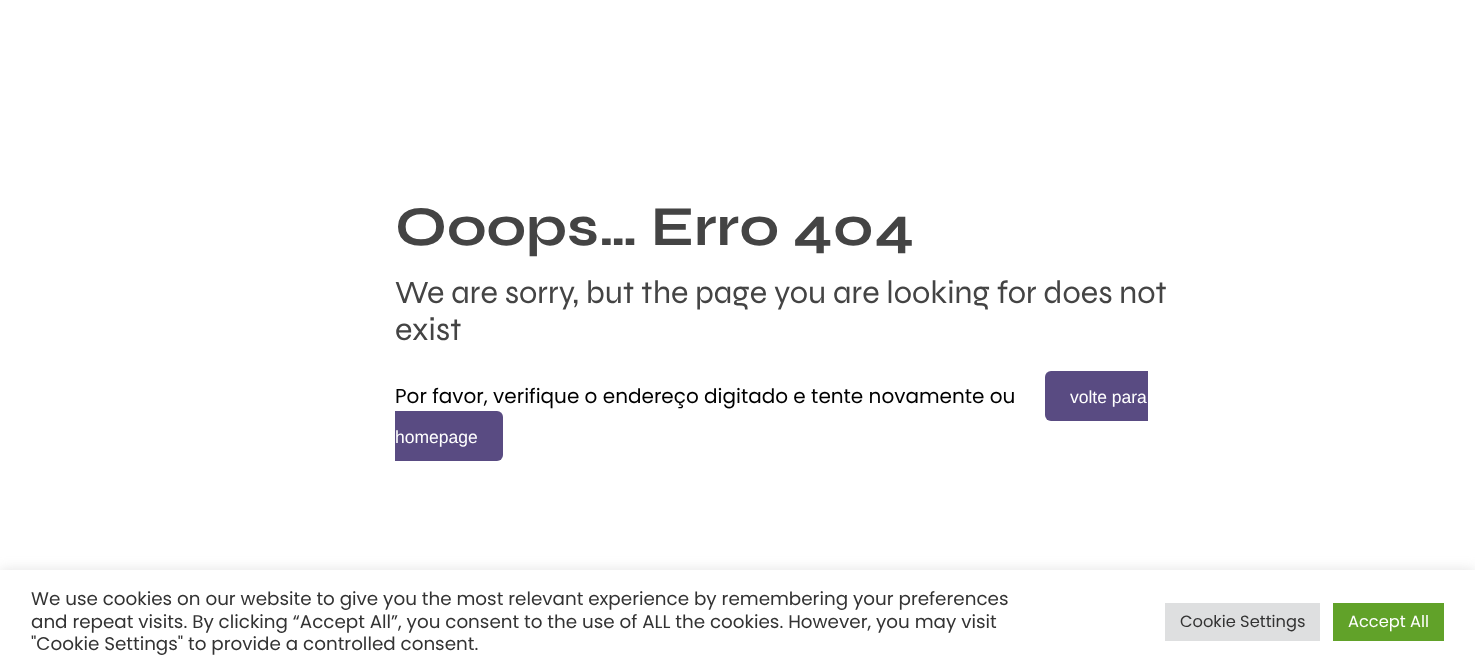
async function draw(canvas) {
  canvas.width = 1475;
  canvas.height = 672;
  const ctx = canvas.getContext('2d');
  ctx.miterLimit = 4;
  ctx.fontKerning = 'normal';
  function label(s, x, y, font, color) {
    ctx.font = font;
    ctx.fillStyle = color;
    ctx.fillText(s, x, y);
  }
  function rect(x, y, w, h, color) {
    ctx.fillStyle = color;
    ctx.fillRect(x, y, w, h);
  }

  rect(0, 0, 1475, 672, '#fff');
  label('Ooops… Erro 404', 395, 245, 'bold 56.25px Syne', '#444');
  label('We are sorry, but the page you are looking for does not', 395, 303, '32.5px Syne', '#444');
  label('exist', 395, 340, '32.5px Syne', '#444');
  label('Por favor, verifique o endereço digitado e tente novamente ou', 395, 403, '20px Poppins', '#000');
  ctx.fillStyle = '#594b82';
  ctx.beginPath();
  ctx.roundRect(1045, 371, 103, 50, [6, 0, 0, 6]);
  ctx.fill();
  label('volte para', 1070, 403, '17.5px Liberation Sans', '#fff');
  ctx.fillStyle = '#594b82';
  ctx.beginPath();
  ctx.roundRect(395, 411, 108, 50, [0, 6, 6, 0]);
  ctx.fill();
  label('homepage', 395, 443, '17.5px Liberation Sans', '#fff');
  ctx.fillStyle = '#acabab4d';
  ctx.filter = 'blur(6px)';
  ctx.beginPath();
  ctx.rect(0, 569, 1475, 102);
  ctx.fill();
  ctx.filter = 'none';
  rect(0, 570, 1475, 102, '#fff');
  label('We use cookies on our website to give you the most relevant experience by remembering your preferences', 31, 605, '18.33px Poppins', '#333');
  label('and repeat visits. By clicking “Accept All”, you consent to the use of ALL the cookies. However, you may visit', 31, 628, '18.33px Poppins', '#333');
  label('"Cookie Settings" to provide a controlled consent.', 31, 650, '18.33px Poppins', '#333');
  rect(1165, 603, 155, 38, '#dedfe0');
  label('Cookie Settings', 1180, 627, '16.25px Poppins', '#333');
  rect(1333, 603, 111, 38, '#61a229');
  label('Accept All', 1348, 627, '16.25px Poppins', '#fff');
}

draw(document.querySelector('canvas'));
